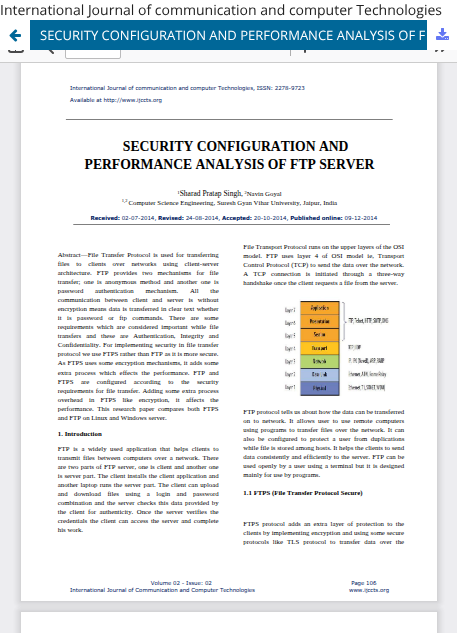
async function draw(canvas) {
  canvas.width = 457;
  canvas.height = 633;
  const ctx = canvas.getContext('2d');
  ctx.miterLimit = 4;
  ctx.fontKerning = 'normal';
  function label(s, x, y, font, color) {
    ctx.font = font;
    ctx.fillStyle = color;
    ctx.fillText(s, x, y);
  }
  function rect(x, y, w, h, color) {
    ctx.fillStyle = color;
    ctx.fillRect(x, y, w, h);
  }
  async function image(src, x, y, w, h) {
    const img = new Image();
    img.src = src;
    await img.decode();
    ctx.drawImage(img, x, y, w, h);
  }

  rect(0, 0, 457, 633, '#fff');
  label('International Journal of communication and computer Technologies', 0, 15, '14px Open Sans', '#212121');
  rect(30, 20, 397, 30, '#006798');
  await image('assets/img1.png', 9, 29, 12, 13);
  label('SECURITY CONFIGURATION AND PERFORMANCE ANALYSIS OF F', 40, 40, '13px Open Sans', '#fff');
  await image('assets/img2.png', 436, 28, 13, 12);
  await image('assets/img3.png', 0, 50, 457, 583);
}

draw(document.querySelector('canvas'));
